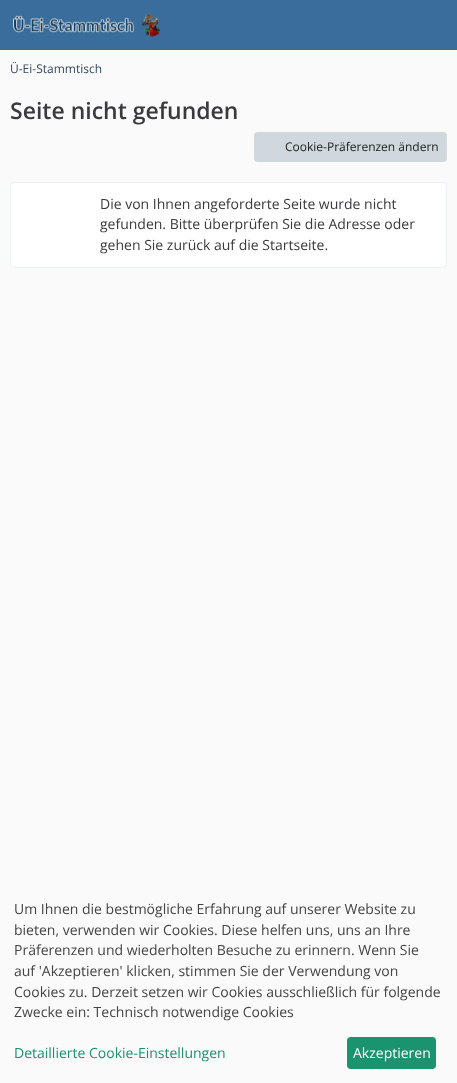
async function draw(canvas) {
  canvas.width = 457;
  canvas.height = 1083;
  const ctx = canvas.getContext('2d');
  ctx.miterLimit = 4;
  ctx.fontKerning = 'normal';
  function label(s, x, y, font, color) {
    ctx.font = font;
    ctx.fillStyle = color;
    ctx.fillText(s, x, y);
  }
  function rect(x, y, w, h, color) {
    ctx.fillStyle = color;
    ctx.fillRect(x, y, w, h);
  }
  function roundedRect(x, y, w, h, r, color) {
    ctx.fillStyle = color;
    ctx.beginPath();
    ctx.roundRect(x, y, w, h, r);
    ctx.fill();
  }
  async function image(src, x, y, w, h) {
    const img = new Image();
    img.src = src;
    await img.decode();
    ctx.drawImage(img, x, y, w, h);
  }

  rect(0, 0, 457, 1083, '#fafafa');
  rect(0, 0, 457, 50, '#3a6d9c');
  await image('assets/img1.png', 13, 13, 147, 24);
  label('Ü-Ei-Stammtisch', 10, 73, '12px Open Sans', '#34495e');
  label('Seite nicht gefunden', 10, 119, '600 23px Open Sans', '#3a3a3d');
  roundedRect(254, 132, 193, 30, 4, '#cfd8dc');
  label('Cookie-Präferenzen ändern', 285, 151, '12px Open Sans', '#212121');
  ctx.fillStyle = '#fff';
  ctx.beginPath();
  ctx.roundRect(10.5, 182.5, 436, 85, 3.5);
  ctx.fill();
  ctx.strokeStyle = '#ecf1f7';
  ctx.stroke();
  label('Die von Ihnen angeforderte Seite wurde nicht', 100, 209, '14px Open Sans', '#3a3a3d');
  label('gefunden. Bitte überprüfen Sie die Adresse oder', 100, 229, '14px Open Sans', '#3a3a3d');
  label('gehen Sie zurück auf die Startseite.', 100, 250, '14px Open Sans', '#3a3a3d');
  label('Um Ihnen die bestmögliche Erfahrung auf unserer Website zu', 14, 914, '14px Open Sans', '#444');
  label('bieten, verwenden wir Cookies. Diese helfen uns, uns an Ihre', 14, 935, '14px Open Sans', '#444');
  label('Präferenzen und wiederholten Besuche zu erinnern. Wenn Sie', 14, 955, '14px Open Sans', '#444');
  label('auf \'Akzeptieren\' klicken, stimmen Sie der Verwendung von', 14, 976, '14px Open Sans', '#444');
  label('Cookies zu. Derzeit setzen wir Cookies ausschließlich für folgende', 14, 997, '14px Open Sans', '#444');
  label('Zwecke ein: Technisch notwendige Cookies', 14, 1017, '14px Open Sans', '#444');
  label('Detaillierte Cookie-Einstellungen', 14, 1058, '14px Open Sans', '#1a936f');
  roundedRect(347, 1037, 89, 32, 4, '#1a936f');
  label('Akzeptieren', 353, 1058, '14px Open Sans', '#fff');
}

draw(document.querySelector('canvas'));
